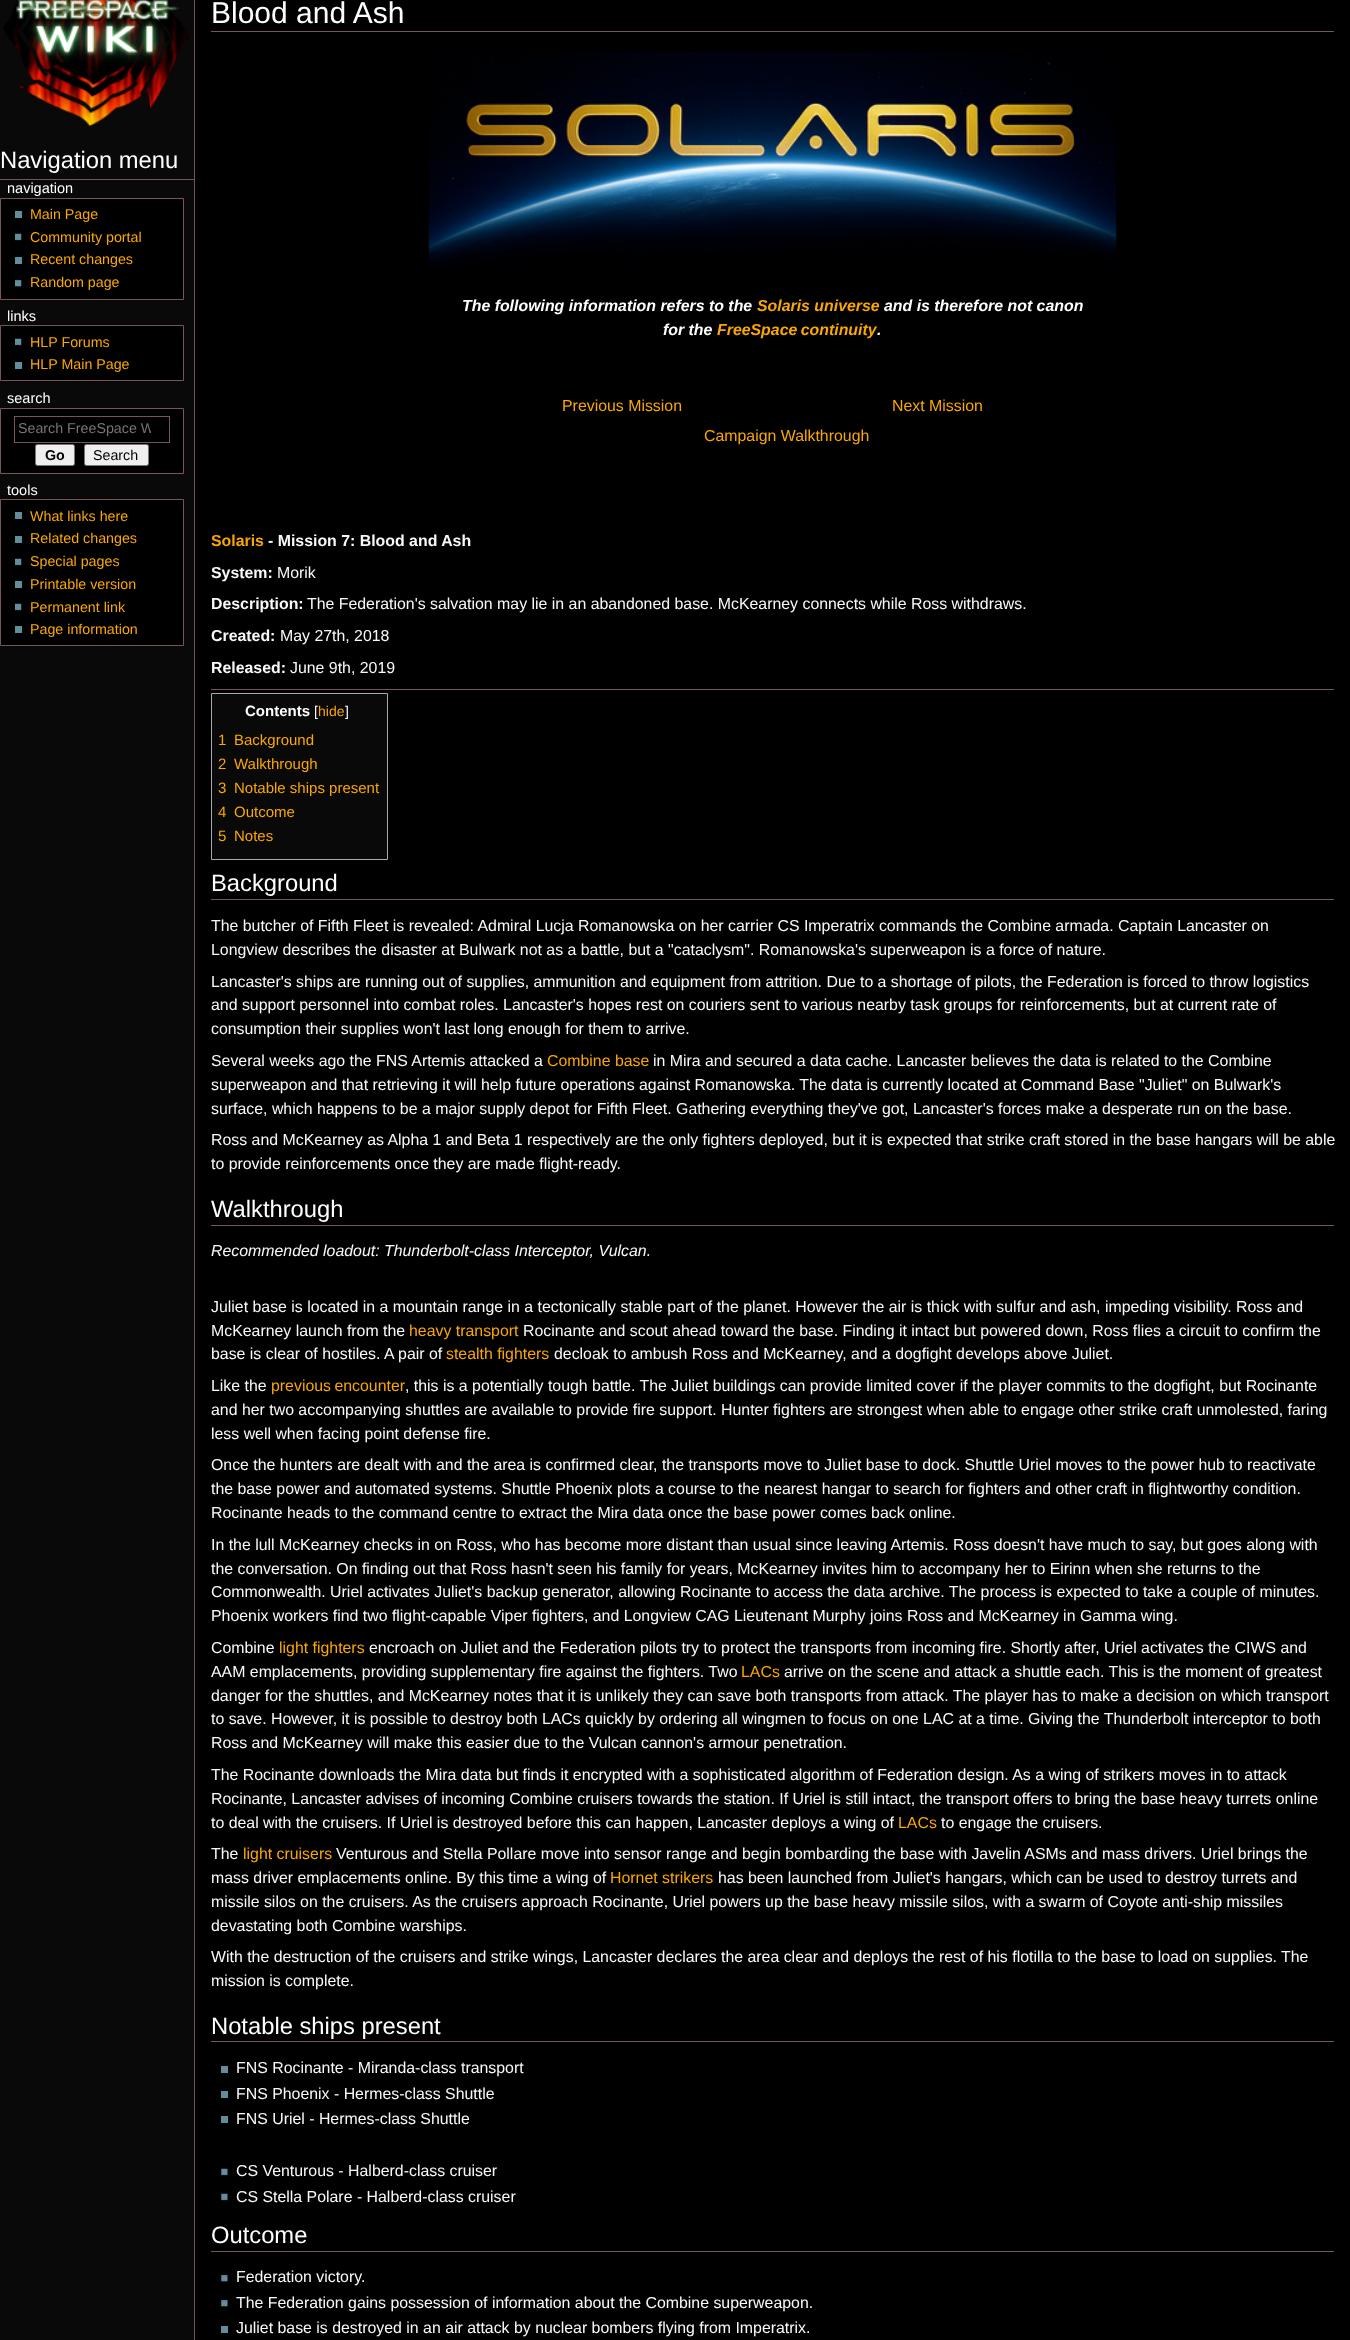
async function draw(canvas) {
  canvas.width = 1350;
  canvas.height = 2340;
  const ctx = canvas.getContext('2d');
  ctx.miterLimit = 4;
  ctx.fontKerning = 'normal';
  function label(s, x, y, font, color) {
    ctx.font = font;
    ctx.fillStyle = color;
    ctx.fillText(s, x, y);
  }
  function rect(x, y, w, h, color) {
    ctx.fillStyle = color;
    ctx.fillRect(x, y, w, h);
  }
  async function image(src, x, y, w, h) {
    const img = new Image();
    img.src = src;
    await img.decode();
    ctx.drawImage(img, x, y, w, h);
  }

  rect(0, 0, 1350, 2340, '#090909');
  await image('assets/img1.png', 3, 0, 186, 127);
  rect(0, 179, 194, 1, '#755');
  label('Navigation menu', 0, 168, '23.75px Liberation Sans', '#fff');
  label('navigation', 7, 193, '14.5px Liberation Sans', '#fff');
  ctx.fillStyle = '#000';
  ctx.beginPath();
  ctx.rect(0.5, 198.5, 183, 101);
  ctx.fill();
  ctx.strokeStyle = '#755';
  ctx.stroke();
  rect(15, 211, 7, 7, '#638c9c');
  label('Main Page', 30, 219, '14.25px Liberation Sans', '#faa700');
  await image('assets/img2.png', 15, 233, 7, 8);
  label('Community portal', 30, 242, '14.25px Liberation Sans', '#faa700');
  rect(15, 257, 7, 7, '#638c9c');
  label('Recent changes', 30, 264, '14.25px Liberation Sans', '#faa700');
  await image('assets/img3.png', 15, 279, 7, 8);
  label('Random page', 30, 287, '14.25px Liberation Sans', '#faa700');
  label('links', 7, 321, '14.5px Liberation Sans', '#fff');
  ctx.fillStyle = '#000';
  ctx.beginPath();
  ctx.rect(0.5, 325.5, 183, 55);
  ctx.fill();
  ctx.stroke();
  await image('assets/img2.png', 15, 338, 7, 8);
  label('HLP Forums', 30, 347, '14.25px Liberation Sans', '#faa700');
  rect(15, 362, 7, 7, '#638c9c');
  label('HLP Main Page', 30, 369, '14.25px Liberation Sans', '#faa700');
  label('search', 7, 403, '14.5px Liberation Sans', '#fff');
  ctx.fillStyle = '#000';
  ctx.beginPath();
  ctx.rect(0.5, 408.5, 183, 65);
  ctx.fill();
  ctx.stroke();
  ctx.strokeRect(14.5, 416.5, 155, 26);
  ctx.save();
  ctx.beginPath();
  ctx.rect(18, 421, 133, 15);
  ctx.clip();
  label('Search FreeSpace W', 18, 433, '14.25px Liberation Sans', '#757575');
  ctx.restore();
  ctx.fillStyle = '#efefef';
  ctx.beginPath();
  ctx.roundRect(35.5, 444.5, 39, 21, 2);
  ctx.fill();
  ctx.strokeStyle = '#767676';
  ctx.stroke();
  label('Go', 45, 460, 'bold 14.25px Liberation Sans', '#000');
  ctx.fillStyle = '#efefef';
  ctx.beginPath();
  ctx.roundRect(84.5, 444.5, 64, 21, 2);
  ctx.fill();
  ctx.stroke();
  label('Search', 93, 460, '14.25px Liberation Sans', '#000');
  label('tools', 7, 495, '14.5px Liberation Sans', '#fff');
  ctx.fillStyle = '#000';
  ctx.beginPath();
  ctx.rect(0.5, 499.5, 183, 146);
  ctx.fill();
  ctx.strokeStyle = '#755';
  ctx.stroke();
  rect(15, 512, 7, 7, '#638c9c');
  label('What links here', 30, 521, '14.25px Liberation Sans', '#faa700');
  rect(15, 536, 7, 7, '#638c9c');
  label('Related changes', 30, 543, '14.25px Liberation Sans', '#faa700');
  await image('assets/img2.png', 15, 558, 7, 8);
  label('Special pages', 30, 566, '14.25px Liberation Sans', '#faa700');
  rect(15, 581, 7, 7, '#638c9c');
  label('Printable version', 30, 589, '14.25px Liberation Sans', '#faa700');
  await image('assets/img2.png', 15, 603, 7, 8);
  label('Permanent link', 30, 612, '14.25px Liberation Sans', '#faa700');
  rect(15, 626, 7, 7, '#638c9c');
  label('Page information', 30, 634, '14.25px Liberation Sans', '#faa700');
  rect(195, 0, 1155, 2340, '#000');
  rect(194, 0, 1, 2340, '#755');
  rect(211, 31, 1123, 1, '#755');
  label('Blood and Ash', 211, 23, '30px Liberation Sans', '#fff');
  await image('assets/img4.png', 428, 51, 689, 217);
  label('The following information refers to the', 462, 311, 'italic bold 15.88px Liberation Sans', '#fff');
  label('Solaris universe', 757, 311, 'italic bold 15.88px Liberation Sans', '#faa700');
  label('and is therefore not canon', 884, 311, 'italic bold 15.88px Liberation Sans', '#fff');
  label('for the', 663, 335, 'italic bold 15.88px Liberation Sans', '#fff');
  ctx.wordSpacing = '-1px';
  label('FreeSpace continuity', 717, 335, 'italic bold 15.88px Liberation Sans', '#faa700');
  ctx.wordSpacing = '0px';
  label('.', 877, 335, 'italic bold 15.88px Liberation Sans', '#fff');
  label('Previous Mission', 562, 411, '15.88px Liberation Sans', '#faa700');
  label('Next Mission', 892, 411, '15.88px Liberation Sans', '#faa700');
  label('Campaign Walkthrough', 704, 441, '15.88px Liberation Sans', '#faa700');
  label('Solaris', 211, 546, 'bold 15.88px Liberation Sans', '#faa700');
  label('- Mission 7: Blood and Ash', 268, 546, 'bold 15.88px Liberation Sans', '#f9f9f9');
  label('System:', 211, 578, 'bold 15.88px Liberation Sans', '#f9f9f9');
  label('Morik', 277, 578, '15.88px Liberation Sans', '#f9f9f9');
  label('Description:', 211, 609, 'bold 15.88px Liberation Sans', '#f9f9f9');
  label('The Federation\'s salvation may lie in an abandoned base. McKearney connects while Ross withdraws.', 307, 609, '15.88px Liberation Sans', '#f9f9f9');
  label('Created:', 211, 641, 'bold 15.88px Liberation Sans', '#f9f9f9');
  label('May 27th, 2018', 280, 641, '15.88px Liberation Sans', '#f9f9f9');
  label('Released:', 211, 673, 'bold 15.88px Liberation Sans', '#f9f9f9');
  label('June 9th, 2019', 290, 673, '15.88px Liberation Sans', '#f9f9f9');
  rect(211, 689, 1123, 1, '#755');
  ctx.fillStyle = '#090909';
  ctx.beginPath();
  ctx.rect(211.5, 693.5, 176, 166);
  ctx.fill();
  ctx.strokeStyle = '#aaa';
  ctx.stroke();
  label('Contents', 245, 716, 'bold 15px Liberation Sans', '#fff');
  label('[', 314, 716, '14px Liberation Sans', '#f9f9f9');
  label('hide', 318, 716, '14px Liberation Sans', '#faa700');
  label(']', 345, 716, '14px Liberation Sans', '#f9f9f9');
  label('1', 218, 745, '15px Liberation Sans', '#faa700');
  label('Background', 234, 745, '15px Liberation Sans', '#faa700');
  label('2', 218, 769, '15px Liberation Sans', '#faa700');
  label('Walkthrough', 234, 769, '15px Liberation Sans', '#faa700');
  label('3', 218, 793, '15px Liberation Sans', '#faa700');
  label('Notable ships present', 234, 793, '15px Liberation Sans', '#faa700');
  label('4', 218, 817, '15px Liberation Sans', '#faa700');
  label('Outcome', 234, 817, '15px Liberation Sans', '#faa700');
  label('5', 218, 841, '15px Liberation Sans', '#faa700');
  label('Notes', 234, 841, '15px Liberation Sans', '#faa700');
  rect(211, 899, 1123, 1, '#755');
  label('Background', 211, 891, '23.75px Liberation Sans', '#fff');
  label('The butcher of Fifth Fleet is revealed: Admiral Lucja Romanowska on her carrier CS Imperatrix commands the Combine armada. Captain Lancaster on', 211, 931, '15.88px Liberation Sans', '#f9f9f9');
  label('Longview describes the disaster at Bulwark not as a battle, but a "cataclysm". Romanowska\'s superweapon is a force of nature.', 211, 955, '15.88px Liberation Sans', '#f9f9f9');
  label('Lancaster\'s ships are running out of supplies, ammunition and equipment from attrition. Due to a shortage of pilots, the Federation is forced to throw logistics', 211, 987, '15.88px Liberation Sans', '#f9f9f9');
  label('and support personnel into combat roles. Lancaster\'s hopes rest on couriers sent to various nearby task groups for reinforcements, but at current rate of', 211, 1010, '15.88px Liberation Sans', '#f9f9f9');
  label('consumption their supplies won\'t last long enough for them to arrive.', 211, 1034, '15.88px Liberation Sans', '#f9f9f9');
  label('Several weeks ago the FNS Artemis attacked a', 211, 1066, '15.88px Liberation Sans', '#f9f9f9');
  label('Combine base', 547, 1066, '15.88px Liberation Sans', '#faa700');
  label('in Mira and secured a data cache. Lancaster believes the data is related to the Combine', 653, 1066, '15.88px Liberation Sans', '#f9f9f9');
  label('superweapon and that retrieving it will help future operations against Romanowska. The data is currently located at Command Base "Juliet" on Bulwark\'s', 211, 1090, '15.88px Liberation Sans', '#f9f9f9');
  label('surface, which happens to be a major supply depot for Fifth Fleet. Gathering everything they\'ve got, Lancaster\'s forces make a desperate run on the base.', 211, 1114, '15.88px Liberation Sans', '#f9f9f9');
  label('Ross and McKearney as Alpha 1 and Beta 1 respectively are the only fighters deployed, but it is expected that strike craft stored in the base hangars will be able', 211, 1145, '15.88px Liberation Sans', '#f9f9f9');
  label('to provide reinforcements once they are made flight-ready.', 211, 1169, '15.88px Liberation Sans', '#f9f9f9');
  rect(211, 1225, 1123, 1, '#755');
  label('Walkthrough', 211, 1217, '23.75px Liberation Sans', '#fff');
  label('Recommended loadout: Thunderbolt-class Interceptor, Vulcan.', 211, 1256, 'italic 15.88px Liberation Sans', '#f9f9f9');
  label('Juliet base is located in a mountain range in a tectonically stable part of the planet. However the air is thick with sulfur and ash, impeding visibility. Ross and', 211, 1312, '15.88px Liberation Sans', '#f9f9f9');
  label('McKearney launch from the', 211, 1336, '15.88px Liberation Sans', '#f9f9f9');
  label('heavy transport', 409, 1336, '15.88px Liberation Sans', '#faa700');
  label('Rocinante and scout ahead toward the base. Finding it intact but powered down, Ross flies a circuit to confirm the', 523, 1336, '15.88px Liberation Sans', '#f9f9f9');
  label('base is clear of hostiles. A pair of', 211, 1359, '15.88px Liberation Sans', '#f9f9f9');
  label('stealth fighters', 446, 1359, '15.88px Liberation Sans', '#faa700');
  label('decloak to ambush Ross and McKearney, and a dogfight develops above Juliet.', 554, 1359, '15.88px Liberation Sans', '#f9f9f9');
  label('Like the', 211, 1391, '15.88px Liberation Sans', '#f9f9f9');
  ctx.wordSpacing = '-1px';
  label('previous encounter', 271, 1391, '15.88px Liberation Sans', '#faa700');
  ctx.wordSpacing = '0px';
  label(', this is a potentially tough battle. The Juliet buildings can provide limited cover if the player commits to the dogfight, but Rocinante', 405, 1391, '15.88px Liberation Sans', '#f9f9f9');
  label('and her two accompanying shuttles are available to provide fire support. Hunter fighters are strongest when able to engage other strike craft unmolested, faring', 211, 1415, '15.88px Liberation Sans', '#f9f9f9');
  label('less well when facing point defense fire.', 211, 1439, '15.88px Liberation Sans', '#f9f9f9');
  label('Once the hunters are dealt with and the area is confirmed clear, the transports move to Juliet base to dock. Shuttle Uriel moves to the power hub to reactivate', 211, 1470, '15.88px Liberation Sans', '#f9f9f9');
  label('the base power and automated systems. Shuttle Phoenix plots a course to the nearest hangar to search for fighters and other craft in flightworthy condition.', 211, 1494, '15.88px Liberation Sans', '#f9f9f9');
  label('Rocinante heads to the command centre to extract the Mira data once the base power comes back online.', 211, 1518, '15.88px Liberation Sans', '#f9f9f9');
  label('In the lull McKearney checks in on Ross, who has become more distant than usual since leaving Artemis. Ross doesn\'t have much to say, but goes along with', 211, 1550, '15.88px Liberation Sans', '#f9f9f9');
  label('the conversation. On finding out that Ross hasn\'t seen his family for years, McKearney invites him to accompany her to Eirinn when she returns to the', 211, 1574, '15.88px Liberation Sans', '#f9f9f9');
  label('Commonwealth. Uriel activates Juliet\'s backup generator, allowing Rocinante to access the data archive. The process is expected to take a couple of minutes.', 211, 1597, '15.88px Liberation Sans', '#f9f9f9');
  label('Phoenix workers find two flight-capable Viper fighters, and Longview CAG Lieutenant Murphy joins Ross and McKearney in Gamma wing.', 211, 1621, '15.88px Liberation Sans', '#f9f9f9');
  label('Combine', 211, 1653, '15.88px Liberation Sans', '#f9f9f9');
  label('light fighters', 279, 1653, '15.88px Liberation Sans', '#faa700');
  label('encroach on Juliet and the Federation pilots try to protect the transports from incoming fire. Shortly after, Uriel activates the CIWS and', 369, 1653, '15.88px Liberation Sans', '#f9f9f9');
  label('AAM emplacements, providing supplementary fire against the fighters. Two', 211, 1677, '15.88px Liberation Sans', '#f9f9f9');
  label('LACs', 741, 1677, '15.88px Liberation Sans', '#faa700');
  label('arrive on the scene and attack a shuttle each. This is the moment of greatest', 784, 1677, '15.88px Liberation Sans', '#f9f9f9');
  label('danger for the shuttles, and McKearney notes that it is unlikely they can save both transports from attack. The player has to make a decision on which transport', 211, 1701, '15.88px Liberation Sans', '#f9f9f9');
  label('to save. However, it is possible to destroy both LACs quickly by ordering all wingmen to focus on one LAC at a time. Giving the Thunderbolt interceptor to both', 211, 1724, '15.88px Liberation Sans', '#f9f9f9');
  label('Ross and McKearney will make this easier due to the Vulcan cannon\'s armour penetration.', 211, 1748, '15.88px Liberation Sans', '#f9f9f9');
  label('The Rocinante downloads the Mira data but finds it encrypted with a sophisticated algorithm of Federation design. As a wing of strikers moves in to attack', 211, 1780, '15.88px Liberation Sans', '#f9f9f9');
  label('Rocinante, Lancaster advises of incoming Combine cruisers towards the station. If Uriel is still intact, the transport offers to bring the base heavy turrets online', 211, 1804, '15.88px Liberation Sans', '#f9f9f9');
  label('to deal with the cruisers. If Uriel is destroyed before this can happen, Lancaster deploys a wing of', 211, 1828, '15.88px Liberation Sans', '#f9f9f9');
  label('LACs', 898, 1828, '15.88px Liberation Sans', '#faa700');
  label('to engage the cruisers.', 941, 1828, '15.88px Liberation Sans', '#f9f9f9');
  label('The', 211, 1859, '15.88px Liberation Sans', '#f9f9f9');
  label('light cruisers', 243, 1859, '15.88px Liberation Sans', '#faa700');
  label('Venturous and Stella Pollare move into sensor range and begin bombarding the base with Javelin ASMs and mass drivers. Uriel brings the', 336, 1859, '15.88px Liberation Sans', '#f9f9f9');
  label('mass driver emplacements online. By this time a wing of', 211, 1883, '15.88px Liberation Sans', '#f9f9f9');
  label('Hornet strikers', 610, 1883, '15.88px Liberation Sans', '#faa700');
  label('has been launched from Juliet\'s hangars, which can be used to destroy turrets and', 718, 1883, '15.88px Liberation Sans', '#f9f9f9');
  label('missile silos on the cruisers. As the cruisers approach Rocinante, Uriel powers up the base heavy missile silos, with a swarm of Coyote anti-ship missiles', 211, 1907, '15.88px Liberation Sans', '#f9f9f9');
  label('devastating both Combine warships.', 211, 1931, '15.88px Liberation Sans', '#f9f9f9');
  label('With the destruction of the cruisers and strike wings, Lancaster declares the area clear and deploys the rest of his flotilla to the base to load on supplies. The', 211, 1962, '15.88px Liberation Sans', '#f9f9f9');
  label('mission is complete.', 211, 1986, '15.88px Liberation Sans', '#f9f9f9');
  rect(211, 2041, 1123, 1, '#755');
  label('Notable ships present', 211, 2034, '23.75px Liberation Sans', '#fff');
  rect(221, 2066, 7, 7, '#638c9c');
  label('FNS Rocinante - Miranda-class transport', 236, 2073, '15.88px Liberation Sans', '#f9f9f9');
  rect(221, 2091, 7, 7, '#638c9c');
  label('FNS Phoenix - Hermes-class Shuttle', 236, 2099, '15.88px Liberation Sans', '#f9f9f9');
  rect(221, 2116, 7, 7, '#638c9c');
  label('FNS Uriel - Hermes-class Shuttle', 236, 2124, '15.88px Liberation Sans', '#f9f9f9');
  await image('assets/img5.png', 221, 2168, 7, 8);
  label('CS Venturous - Halberd-class cruiser', 236, 2176, '15.88px Liberation Sans', '#f9f9f9');
  await image('assets/img5.png', 221, 2193, 7, 8);
  label('CS Stella Polare - Halberd-class cruiser', 236, 2202, '15.88px Liberation Sans', '#f9f9f9');
  rect(211, 2251, 1123, 1, '#755');
  label('Outcome', 211, 2243, '23.75px Liberation Sans', '#fff');
  await image('assets/img6.png', 221, 2274, 7, 8);
  label('Federation victory.', 236, 2282, '15.88px Liberation Sans', '#f9f9f9');
  await image('assets/img6.png', 221, 2299, 7, 8);
  label('The Federation gains possession of information about the Combine superweapon.', 236, 2308, '15.88px Liberation Sans', '#f9f9f9');
  rect(221, 2326, 7, 7, '#638c9c');
  label('Juliet base is destroyed in an air attack by nuclear bombers flying from Imperatrix.', 236, 2333, '15.88px Liberation Sans', '#f9f9f9');
}

draw(document.querySelector('canvas'));
